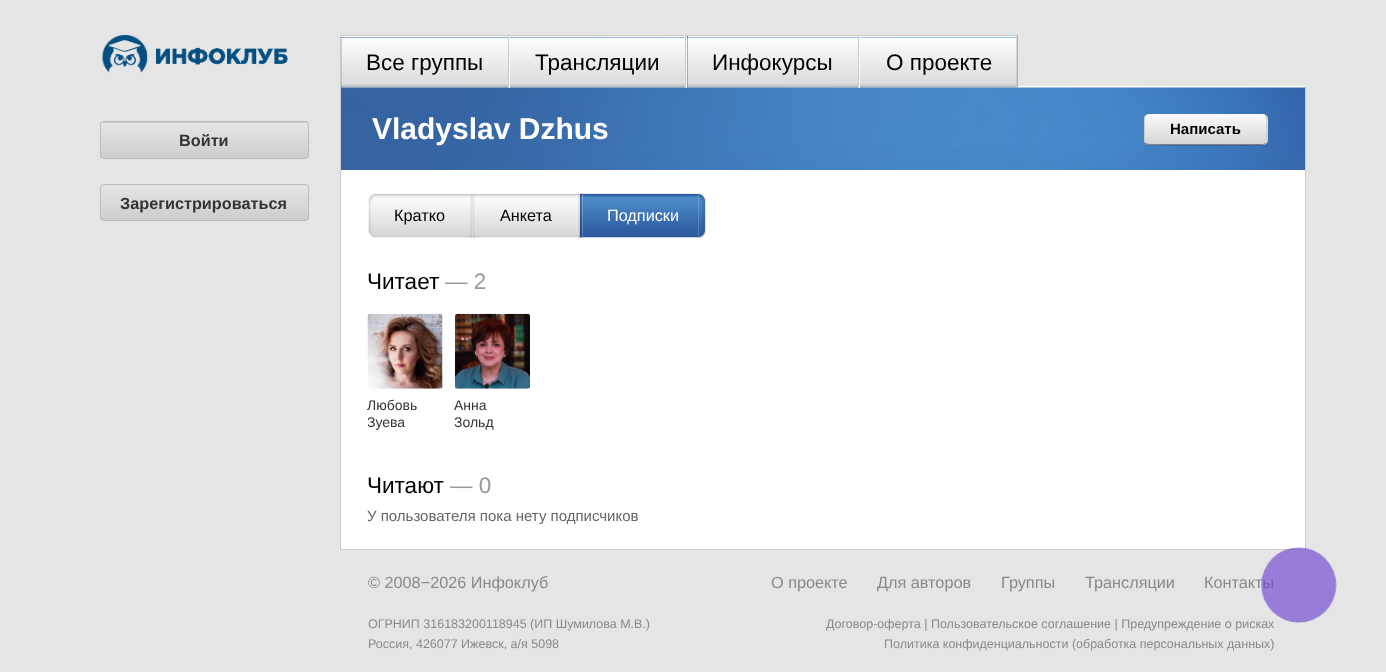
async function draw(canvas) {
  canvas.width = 1386;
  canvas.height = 672;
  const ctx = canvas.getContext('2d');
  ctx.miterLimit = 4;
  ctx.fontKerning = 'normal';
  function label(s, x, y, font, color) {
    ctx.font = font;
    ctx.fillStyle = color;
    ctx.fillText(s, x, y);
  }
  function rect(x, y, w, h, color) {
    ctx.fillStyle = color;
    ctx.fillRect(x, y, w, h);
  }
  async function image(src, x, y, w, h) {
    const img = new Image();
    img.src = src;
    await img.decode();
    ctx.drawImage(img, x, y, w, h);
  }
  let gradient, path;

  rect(0, 0, 1386, 672, '#e5e5e5');
  await image('assets/img1.png', 102, 35, 186, 38);
  ctx.save();
  ctx.beginPath();
  ctx.roundRect(100, 121, 209, 38, 4);
  ctx.clip();
  gradient = ctx.createLinearGradient(101, 123, 101, 88);
  gradient.addColorStop(0, '#cdcdcd');
  gradient.addColorStop(1, '#e6e6e6');
  ctx.fillStyle = gradient;
  ctx.fillRect(100, 121, 209, 2);
  gradient = ctx.createLinearGradient(101, 158, 101, 123);
  gradient.addColorStop(0, '#cdcdcd');
  gradient.addColorStop(1, '#e6e6e6');
  ctx.fillStyle = gradient;
  ctx.fillRect(100, 123, 209, 35);
  ctx.restore();
  ctx.beginPath();
  ctx.roundRect(100.5, 121.5, 208, 37, 3.5);
  ctx.strokeStyle = '#bbb';
  ctx.stroke();
  label('Войти', 179, 146, 'bold 16.25px Liberation Sans', '#333');
  ctx.save();
  ctx.beginPath();
  ctx.roundRect(100, 184, 209, 37, 4);
  ctx.clip();
  gradient = ctx.createLinearGradient(101, 220, 101, 185);
  gradient.addColorStop(0, '#cdcdcd');
  gradient.addColorStop(1, '#e6e6e6');
  ctx.fillStyle = gradient;
  ctx.fillRect(100, 185, 209, 35);
  ctx.restore();
  ctx.beginPath();
  ctx.roundRect(100.5, 184.5, 208, 36, 3.5);
  ctx.stroke();
  label('Зарегистрироваться', 120, 209, 'bold 16.25px Liberation Sans', '#333');
  rect(340, 35, 1, 53, '#cbcbcb');
  rect(341, 86, 964, 463, '#fff');
  rect(341, 36, 675, 52, '#3962a2');
  await image('assets/img2.png', 482, 36, 536, 52);
  rect(341, 35, 677, 1, '#cbcbcb');
  rect(1016, 35, 1, 53, '#cbcbcb');
  await image('assets/img7.png', 342, 87, 963, 83);
  await image('assets/img3.png', 341, 37, 167, 51);
  rect(341, 36, 168, 1, '#f7f7f7');
  rect(508, 36, 1, 52, '#cbcbcb');
  label('Все группы', 366, 70, '22.5px Liberation Sans', '#000');
  rect(509, 36, 1, 52, '#f7f7f7');
  await image('assets/img4.png', 510, 37, 175, 51);
  rect(510, 36, 176, 1, '#f7f7f7');
  rect(685, 36, 1, 52, '#cbcbcb');
  label('Трансляции', 535, 70, '22.5px Liberation Sans', '#000');
  rect(686, 36, 1, 52, '#f7f7f7');
  await image('assets/img5.png', 687, 37, 171, 51);
  rect(688, 36, 171, 1, '#f7f7f7');
  rect(858, 36, 1, 52, '#cbcbcb');
  label('Инфокурсы', 712, 70, '22.5px Liberation Sans', '#000');
  rect(859, 36, 1, 52, '#f7f7f7');
  await image('assets/img6.png', 860, 37, 157, 51);
  rect(860, 36, 156, 1, '#f7f7f7');
  label('О проекте', 886, 70, '22.5px Liberation Sans', '#000');
  rect(1305, 86, 1, 464, '#cbcbcb');
  rect(340, 549, 966, 1, '#cbcbcb');
  rect(340, 86, 1, 464, '#cbcbcb');
  rect(341, 88, 1, 82, '#3962a2');
  label('Vladyslav Dzhus', 372, 139, 'bold 30px Liberation Sans', '#fff');
  ctx.fillStyle = '#00000026';
  path = new Path2D('M1144 142C1144 144 1146 146 1149 146H1263C1266 146 1268 144 1268 141V120L1267 118V141C1266 148 1251 145 1244 145H1168C1163 145 1146 148 1144 142Z');
  ctx.fill(path);
  ctx.save();
  ctx.beginPath();
  ctx.roundRect(1144, 114, 124, 31, 5);
  ctx.clip();
  gradient = ctx.createLinearGradient(1145, 144, 1145, 114);
  gradient.addColorStop(0, '#d6d6d6');
  gradient.addColorStop(1, '#f9faf9');
  ctx.fillStyle = gradient;
  ctx.beginPath();
  ctx.roundRect(1144, 114, 124, 30, [5, 5, 0, 0]);
  ctx.fill();
  gradient = ctx.createLinearGradient(1145, 174, 1145, 144);
  gradient.addColorStop(0, '#d6d6d6');
  gradient.addColorStop(1, '#f9faf9');
  ctx.fillStyle = gradient;
  ctx.fillRect(1144, 144, 124, 1);
  ctx.restore();
  ctx.fillStyle = '#cecece';
  path = new Path2D('M1267.5 142L1266 143.5L1265 142.5C1266 142 1266 141 1266 140V119C1266 116 1265 114 1262 114C1264.5 114 1266.5 115 1267.5 117Z');
  ctx.fill(path);
  ctx.fillStyle = '#808080';
  path = new Path2D('M1146 143L1149 144H1262C1263 144 1264 144 1265 143L1266 144C1265 144 1264 145 1262 145H1149C1147 145 1146 144 1145 143Z');
  ctx.fill(path);
  ctx.fillStyle = '#cecece';
  path = new Path2D('M1149 114C1147 114 1145 116 1145 119V140C1145 141 1145.5 142 1146 142.5L1145.5 143.5C1144.5 142.5 1144 141.5 1144 140V119C1144 116 1146 114 1149 114Z');
  ctx.fill(path);
  label('Написать', 1170, 134, 'bold 15px Liberation Sans', '#000');
  await image('assets/img8.png', 368, 193, 7, 45);
  await image('assets/img9.png', 375, 193, 95, 45);
  label('Кратко', 394, 221, '16.25px Liberation Sans', '#000');
  await image('assets/img10.png', 470, 193, 3, 45);
  await image('assets/img11.png', 472, 193, 3, 45);
  await image('assets/img12.png', 475, 193, 103, 45);
  label('Анкета', 500, 221, '16.25px Liberation Sans', '#000');
  await image('assets/img13.png', 577, 193, 3, 45);
  await image('assets/img14.png', 580, 193, 3, 45);
  await image('assets/img15.png', 582, 193, 117, 45);
  label('Подписки', 607, 221, '16.25px Liberation Sans', '#fff');
  await image('assets/img16.png', 698, 193, 8, 45);
  label('Читает', 367, 289, '22.5px Liberation Sans', '#000');
  label('— 2', 445, 289, '22.5px Liberation Sans', '#999');
  await image('assets/img17.png', 367, 313, 76, 76);
  label('Любовь', 367, 410, '14px Liberation Sans', '#333');
  ctx.save();
  ctx.beginPath();
  ctx.rect(368, 415, 48, 18);
  ctx.clip();
  label('Зуева', 367, 427, '14px Liberation Sans', '#333');
  ctx.restore();
  await image('assets/img18.png', 455, 313, 75, 76);
  label('Анна', 454, 410, '14px Liberation Sans', '#333');
  label('Зольд', 454, 427, '14px Liberation Sans', '#333');
  label('Читают', 367, 493, '22.5px Liberation Sans', '#000');
  label('— 0', 450, 493, '22.5px Liberation Sans', '#999');
  label('У пользователя пока нету подписчиков', 367, 521, '15px Liberation Sans', '#666');
  label('© 2008−2026 Инфоклуб', 368, 588, '16.25px Liberation Sans', '#898989');
  label('О проекте', 771, 588, '16.25px Liberation Sans', '#898989');
  label('Для авторов', 877, 588, '16.25px Liberation Sans', '#898989');
  label('Группы', 1001, 588, '16.25px Liberation Sans', '#898989');
  label('Трансляции', 1085, 588, '16.25px Liberation Sans', '#898989');
  label('Контакты', 1204, 588, '16.25px Liberation Sans', '#898989');
  label('ОГРНИП 316183200118945 (ИП Шумилова М.В.)', 368, 628, '12.5px Liberation Sans', '#898989');
  label('Россия, 426077 Ижевск, а/я 5098', 368, 648, '12.5px Liberation Sans', '#898989');
  label('Договор-оферта | Пользовательское соглашение | Предупреждение о рисках', 826, 628, '12.5px Liberation Sans', '#898989');
  label('Политика конфиденциальности (обработка персональных данных)', 884, 648, '12.5px Liberation Sans', '#898989');
  await image('assets/img19.png', 1260, 547, 77, 76);
}

draw(document.querySelector('canvas'));
